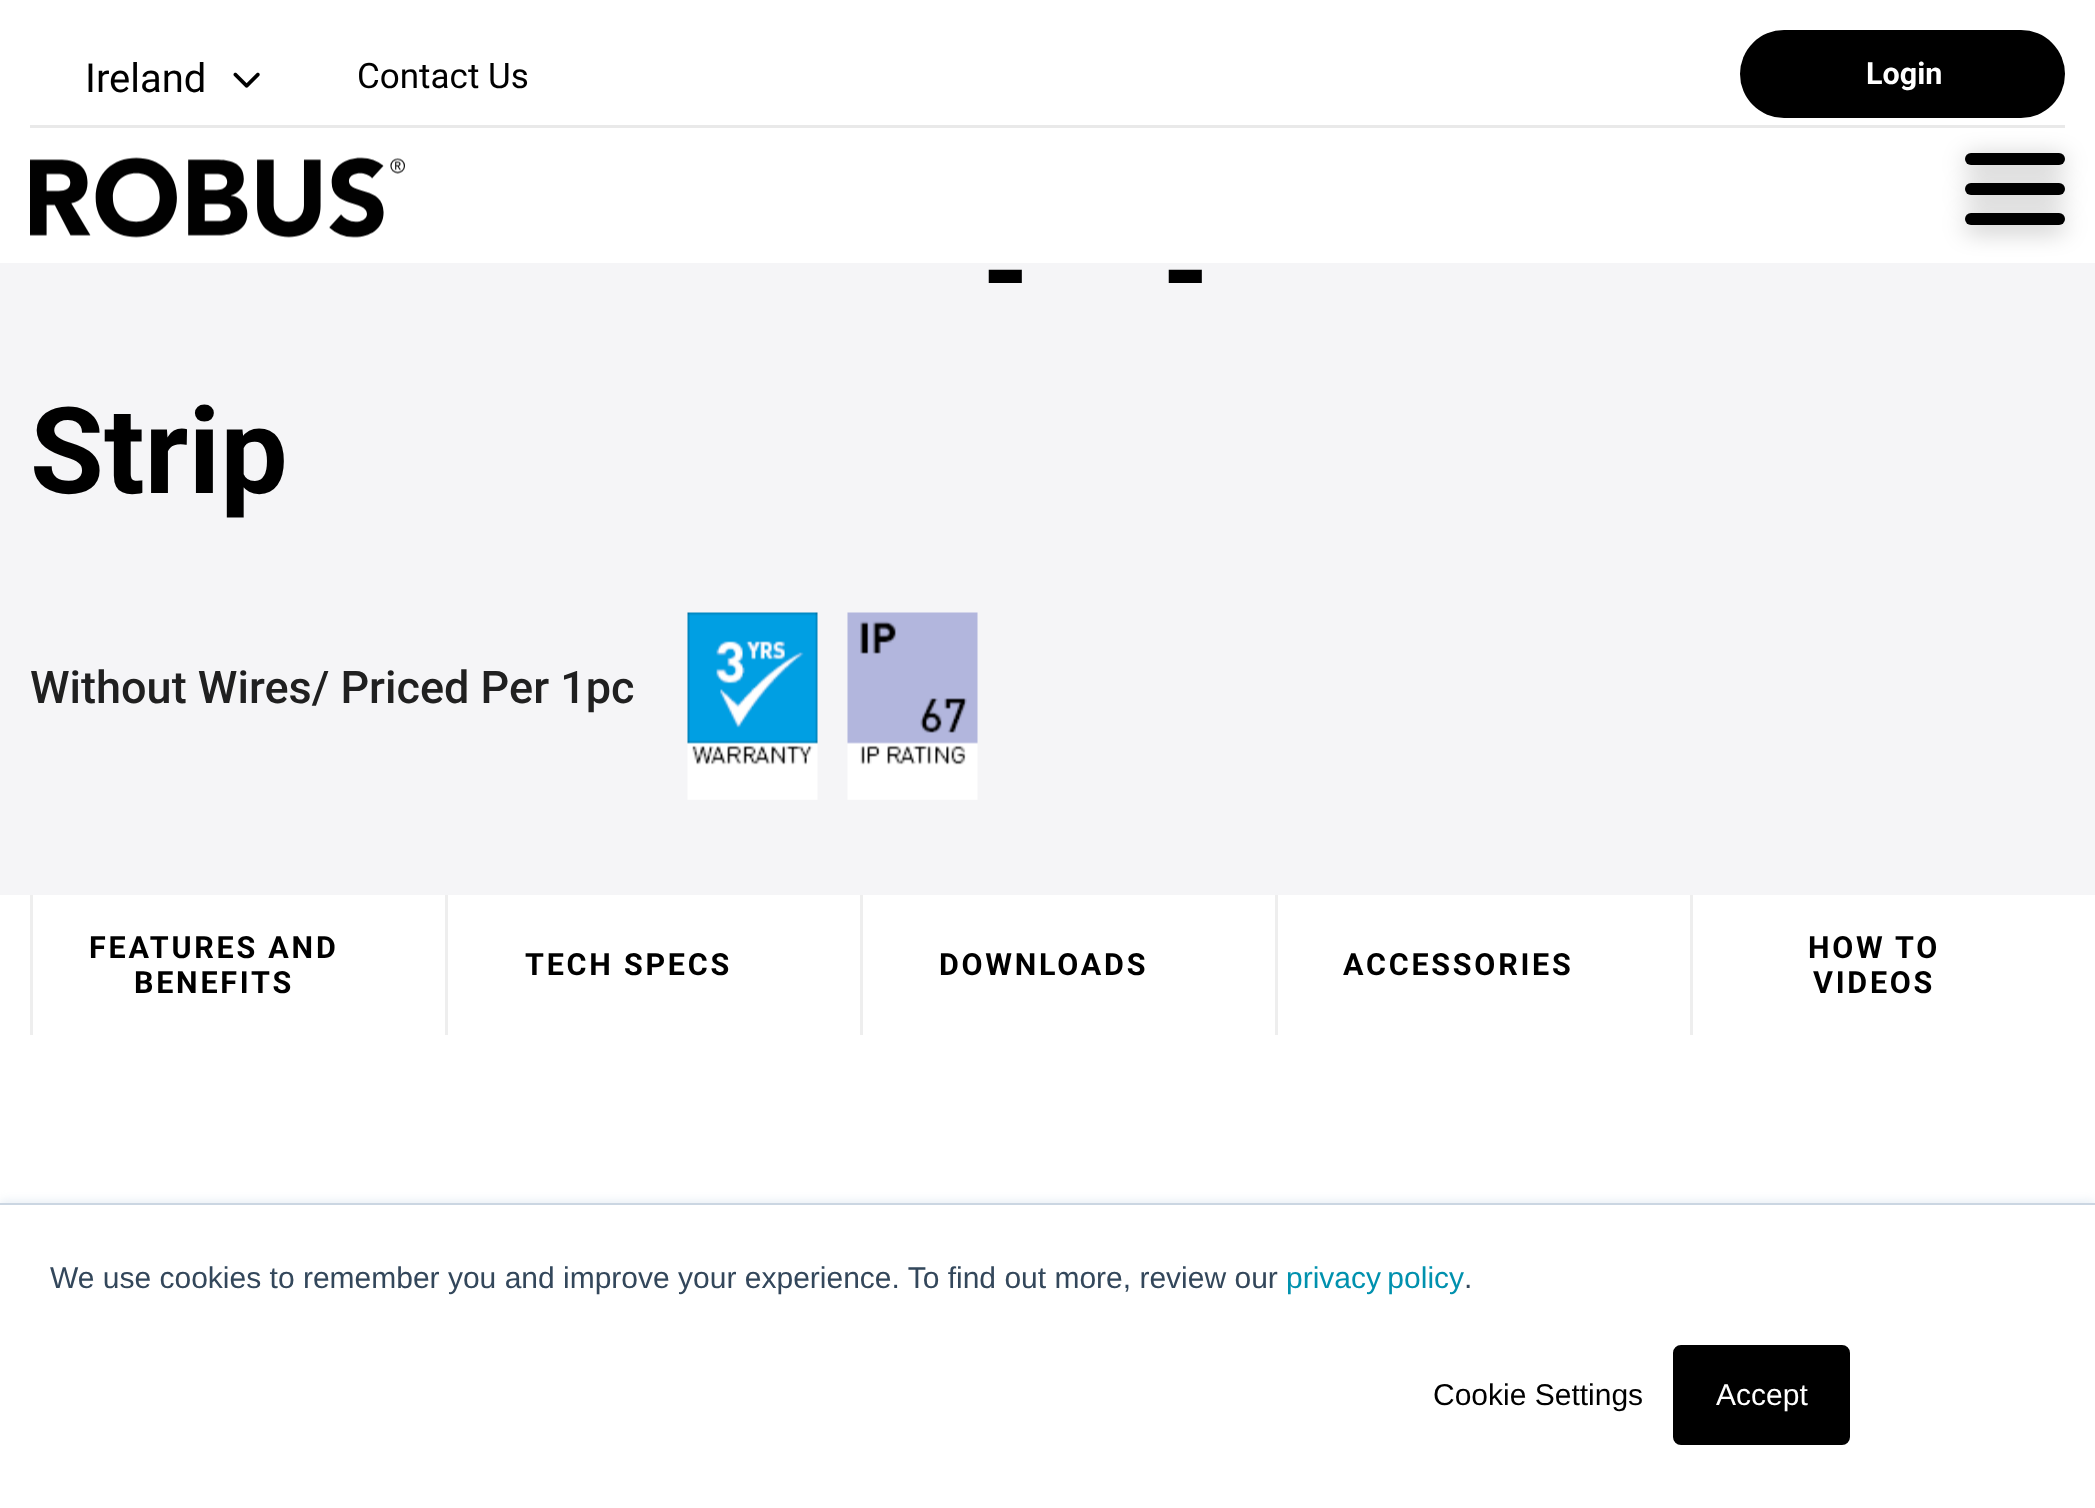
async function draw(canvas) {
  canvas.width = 2095;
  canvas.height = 1508;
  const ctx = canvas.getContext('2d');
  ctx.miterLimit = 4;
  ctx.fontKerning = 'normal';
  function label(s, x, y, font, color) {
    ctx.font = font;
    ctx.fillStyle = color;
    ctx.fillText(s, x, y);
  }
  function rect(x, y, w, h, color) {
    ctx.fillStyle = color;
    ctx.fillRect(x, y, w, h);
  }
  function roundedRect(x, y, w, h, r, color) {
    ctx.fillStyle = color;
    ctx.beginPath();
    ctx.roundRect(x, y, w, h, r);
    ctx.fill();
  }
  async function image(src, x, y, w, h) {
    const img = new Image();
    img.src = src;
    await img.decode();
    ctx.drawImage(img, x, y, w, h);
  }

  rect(0, 0, 2095, 1508, '#fff');
  label('Ireland', 85, 92, '40px Roboto', '#000');
  await image('assets/img1.png', 233, 72, 27, 16);
  label('Contact Us', 357, 88, '35px Roboto', '#000');
  roundedRect(1740, 30, 325, 88, 44, '#000');
  label('Login', 1866, 84, 'bold 30.5px Roboto', '#fff');
  await image('assets/img2.png', 30, 157, 375, 81);
  rect(30, 125, 2035, 3, '#e9e9e9');
  ctx.fillStyle = '#0000004d';
  ctx.filter = 'blur(12.5px)';
  ctx.beginPath();
  ctx.roundRect(1965, 158, 100, 12, 6);
  ctx.fill();
  ctx.filter = 'none';
  roundedRect(1965, 153, 100, 12, 6, '#000');
  ctx.fillStyle = '#0000004d';
  ctx.filter = 'blur(12.5px)';
  ctx.beginPath();
  ctx.roundRect(1965, 188, 100, 12, 6);
  ctx.fill();
  ctx.filter = 'none';
  roundedRect(1965, 183, 100, 12, 6, '#000');
  rect(0, 263, 2095, 632, '#f5f5f7');
  ctx.fillStyle = '#0000004d';
  ctx.filter = 'blur(12.5px)';
  ctx.beginPath();
  ctx.roundRect(1965, 218, 100, 12, 6);
  ctx.fill();
  ctx.filter = 'none';
  roundedRect(1965, 213, 100, 12, 6, '#000');
  label('-', 982, 313, 'bold 120px Roboto', '#000');
  label('-', 1162, 313, 'bold 120px Roboto', '#000');
  label('Strip', 30, 493, 'bold 120px Roboto', '#000');
  label('Without Wires/ Priced Per 1pc', 30, 703, '500 45px Roboto', '#202020');
  await image('assets/img3.png', 687, 612, 131, 188);
  await image('assets/img4.png', 847, 612, 131, 188);
  rect(30, 895, 3, 140, '#eee');
  ctx.letterSpacing = '2.75px';
  label('FEATURES AND', 89, 958, 'bold 30.5px Roboto', '#000');
  label('BENEFITS', 134, 993, 'bold 30.5px Roboto', '#000');
  rect(445, 895, 3, 140, '#eee');
  label('TECH SPECS', 525, 975, 'bold 30.5px Roboto', '#000');
  rect(860, 895, 3, 140, '#eee');
  label('DOWNLOADS', 939, 975, 'bold 30.5px Roboto', '#000');
  rect(1275, 895, 3, 140, '#eee');
  label('ACCESSORIES', 1343, 975, 'bold 30.5px Roboto', '#000');
  rect(1690, 895, 3, 140, '#eee');
  label('HOW TO', 1808, 958, 'bold 30.5px Roboto', '#000');
  label('VIDEOS', 1813, 993, 'bold 30.5px Roboto', '#000');
  ctx.fillStyle = '#eaf0f6';
  ctx.filter = 'blur(4px)';
  ctx.beginPath();
  ctx.rect(0, 1200, 2095, 308);
  ctx.fill();
  ctx.filter = 'none';
  rect(0, 1203, 2095, 2, '#cbd6e2');
  rect(0, 1205, 2095, 303, '#fff');
  ctx.letterSpacing = '0px';
  label('We use cookies to remember you and improve your experience. To find out more, review our', 50, 1288, '30px Liberation Sans', '#33475b');
  ctx.wordSpacing = '-2px';
  label('privacy policy', 1286, 1288, '30px Liberation Sans', '#0091ae');
  ctx.wordSpacing = '0px';
  label('.', 1464, 1288, '30px Liberation Sans', '#33475b');
  label('Cookie Settings', 1433, 1405, '30px Liberation Sans', '#000');
  ctx.beginPath();
  ctx.roundRect(1674.5, 1346.5, 174, 97, 6.5);
  ctx.fill();
  ctx.strokeStyle = '#000';
  ctx.lineWidth = 3;
  ctx.stroke();
  label('Accept', 1716, 1405, '30px Liberation Sans', '#fff');
}

draw(document.querySelector('canvas'));
